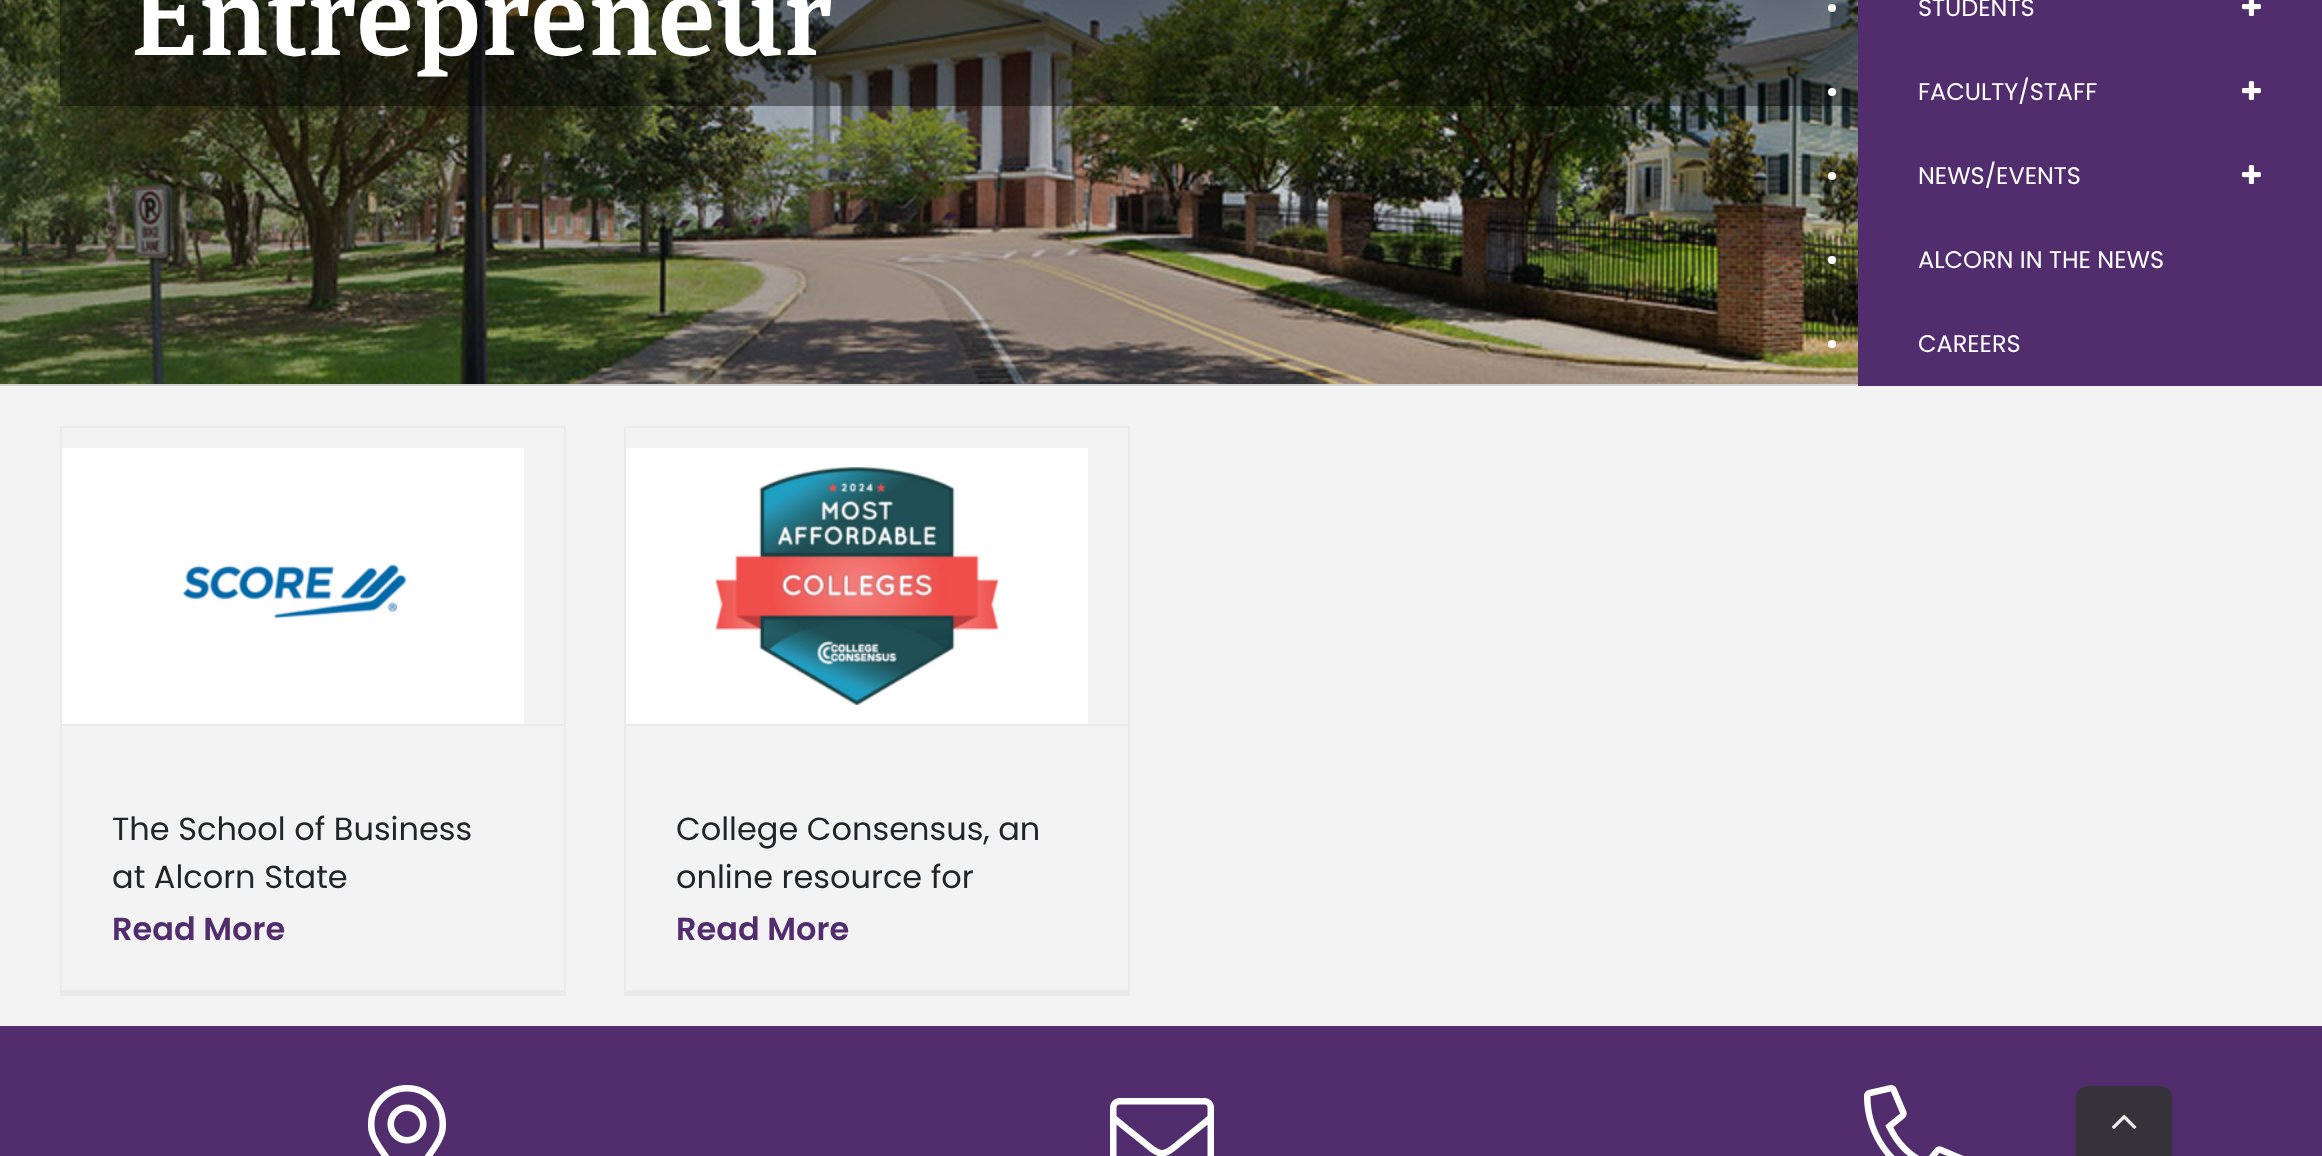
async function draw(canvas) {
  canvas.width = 2322;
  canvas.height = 1156;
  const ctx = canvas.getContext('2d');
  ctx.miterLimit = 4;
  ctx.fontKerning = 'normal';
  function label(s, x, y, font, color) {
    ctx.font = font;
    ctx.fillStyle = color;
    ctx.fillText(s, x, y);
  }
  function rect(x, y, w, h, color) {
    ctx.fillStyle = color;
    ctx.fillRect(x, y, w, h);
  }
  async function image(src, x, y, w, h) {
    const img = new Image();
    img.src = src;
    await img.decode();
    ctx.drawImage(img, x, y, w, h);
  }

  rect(0, 0, 2322, 1156, '#fff');
  await image('assets/img1.png', 0, 0, 1858, 384);
  rect(0, 384, 1858, 2, '#d2d3d4');
  rect(60, 0, 1798, 106, '#00000066');
  label('Entrepreneur', 130, 55, '600 120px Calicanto', '#fff');
  rect(1858, 0, 464, 386, '#512d6d');
  ctx.fillStyle = '#fff';
  ctx.beginPath();
  ctx.arc(1832, 8, 4, 0, 2 * Math.PI);
  ctx.fill();
  label('STUDENTS', 1918, 16, '24px Poppins', '#fff');
  await image('assets/img2.png', 2242, 0, 19, 16);
  ctx.beginPath();
  ctx.arc(1832, 92, 4, 0, 2 * Math.PI);
  ctx.fill();
  label('FACULTY/STAFF', 1918, 100, '24px Poppins', '#fff');
  await image('assets/img3.png', 2242, 81, 19, 19);
  ctx.beginPath();
  ctx.arc(1832, 176, 4, 0, 2 * Math.PI);
  ctx.fill();
  label('NEWS/EVENTS', 1918, 184, '24px Poppins', '#fff');
  await image('assets/img3.png', 2242, 165, 19, 19);
  ctx.beginPath();
  ctx.arc(1832, 260, 4, 0, 2 * Math.PI);
  ctx.fill();
  label('ALCORN IN THE NEWS', 1918, 268, '24px Poppins', '#fff');
  ctx.beginPath();
  ctx.arc(1832, 344, 4, 0, 2 * Math.PI);
  ctx.fill();
  label('CAREERS', 1918, 352, '24px Poppins', '#fff');
  rect(0, 386, 2322, 640, '#f3f3f3');
  rect(60, 426, 506, 2, '#ebeaea');
  rect(564, 426, 2, 570, '#ebeaea');
  rect(60, 990, 506, 6, '#ebeaea');
  rect(60, 426, 2, 570, '#ebeaea');
  rect(62, 724, 502, 2, '#ebeaea');
  await image('assets/img4.png', 62, 448, 462, 276);
  label('The School of Business', 112, 840, '32px Poppins', '#212529');
  label('at Alcorn State', 112, 888, '32px Poppins', '#212529');
  label('Read More', 112, 940, '600 32px Poppins', '#512d6d');
  rect(624, 426, 506, 2, '#ebeaea');
  rect(1128, 426, 2, 570, '#ebeaea');
  rect(624, 990, 506, 6, '#ebeaea');
  rect(624, 426, 2, 570, '#ebeaea');
  rect(626, 724, 502, 2, '#ebeaea');
  await image('assets/img5.png', 626, 448, 462, 276);
  label('College Consensus, an', 676, 840, '32px Poppins', '#212529');
  label('online resource for', 676, 888, '32px Poppins', '#212529');
  label('Read More', 676, 940, '600 32px Poppins', '#512d6d');
  rect(0, 1026, 2322, 130, '#512d6d');
  await image('assets/img6.png', 368, 1085, 78, 71);
  await image('assets/img7.png', 1110, 1098, 104, 58);
  await image('assets/img8.png', 1864, 1085, 100, 71);
  ctx.fillStyle = '#363239';
  ctx.beginPath();
  ctx.roundRect(2076, 1086, 96, 70, [12, 12, 0, 0]);
  ctx.fill();
  await image('assets/img9.png', 2112, 1114, 25, 15);
}

draw(document.querySelector('canvas'));
